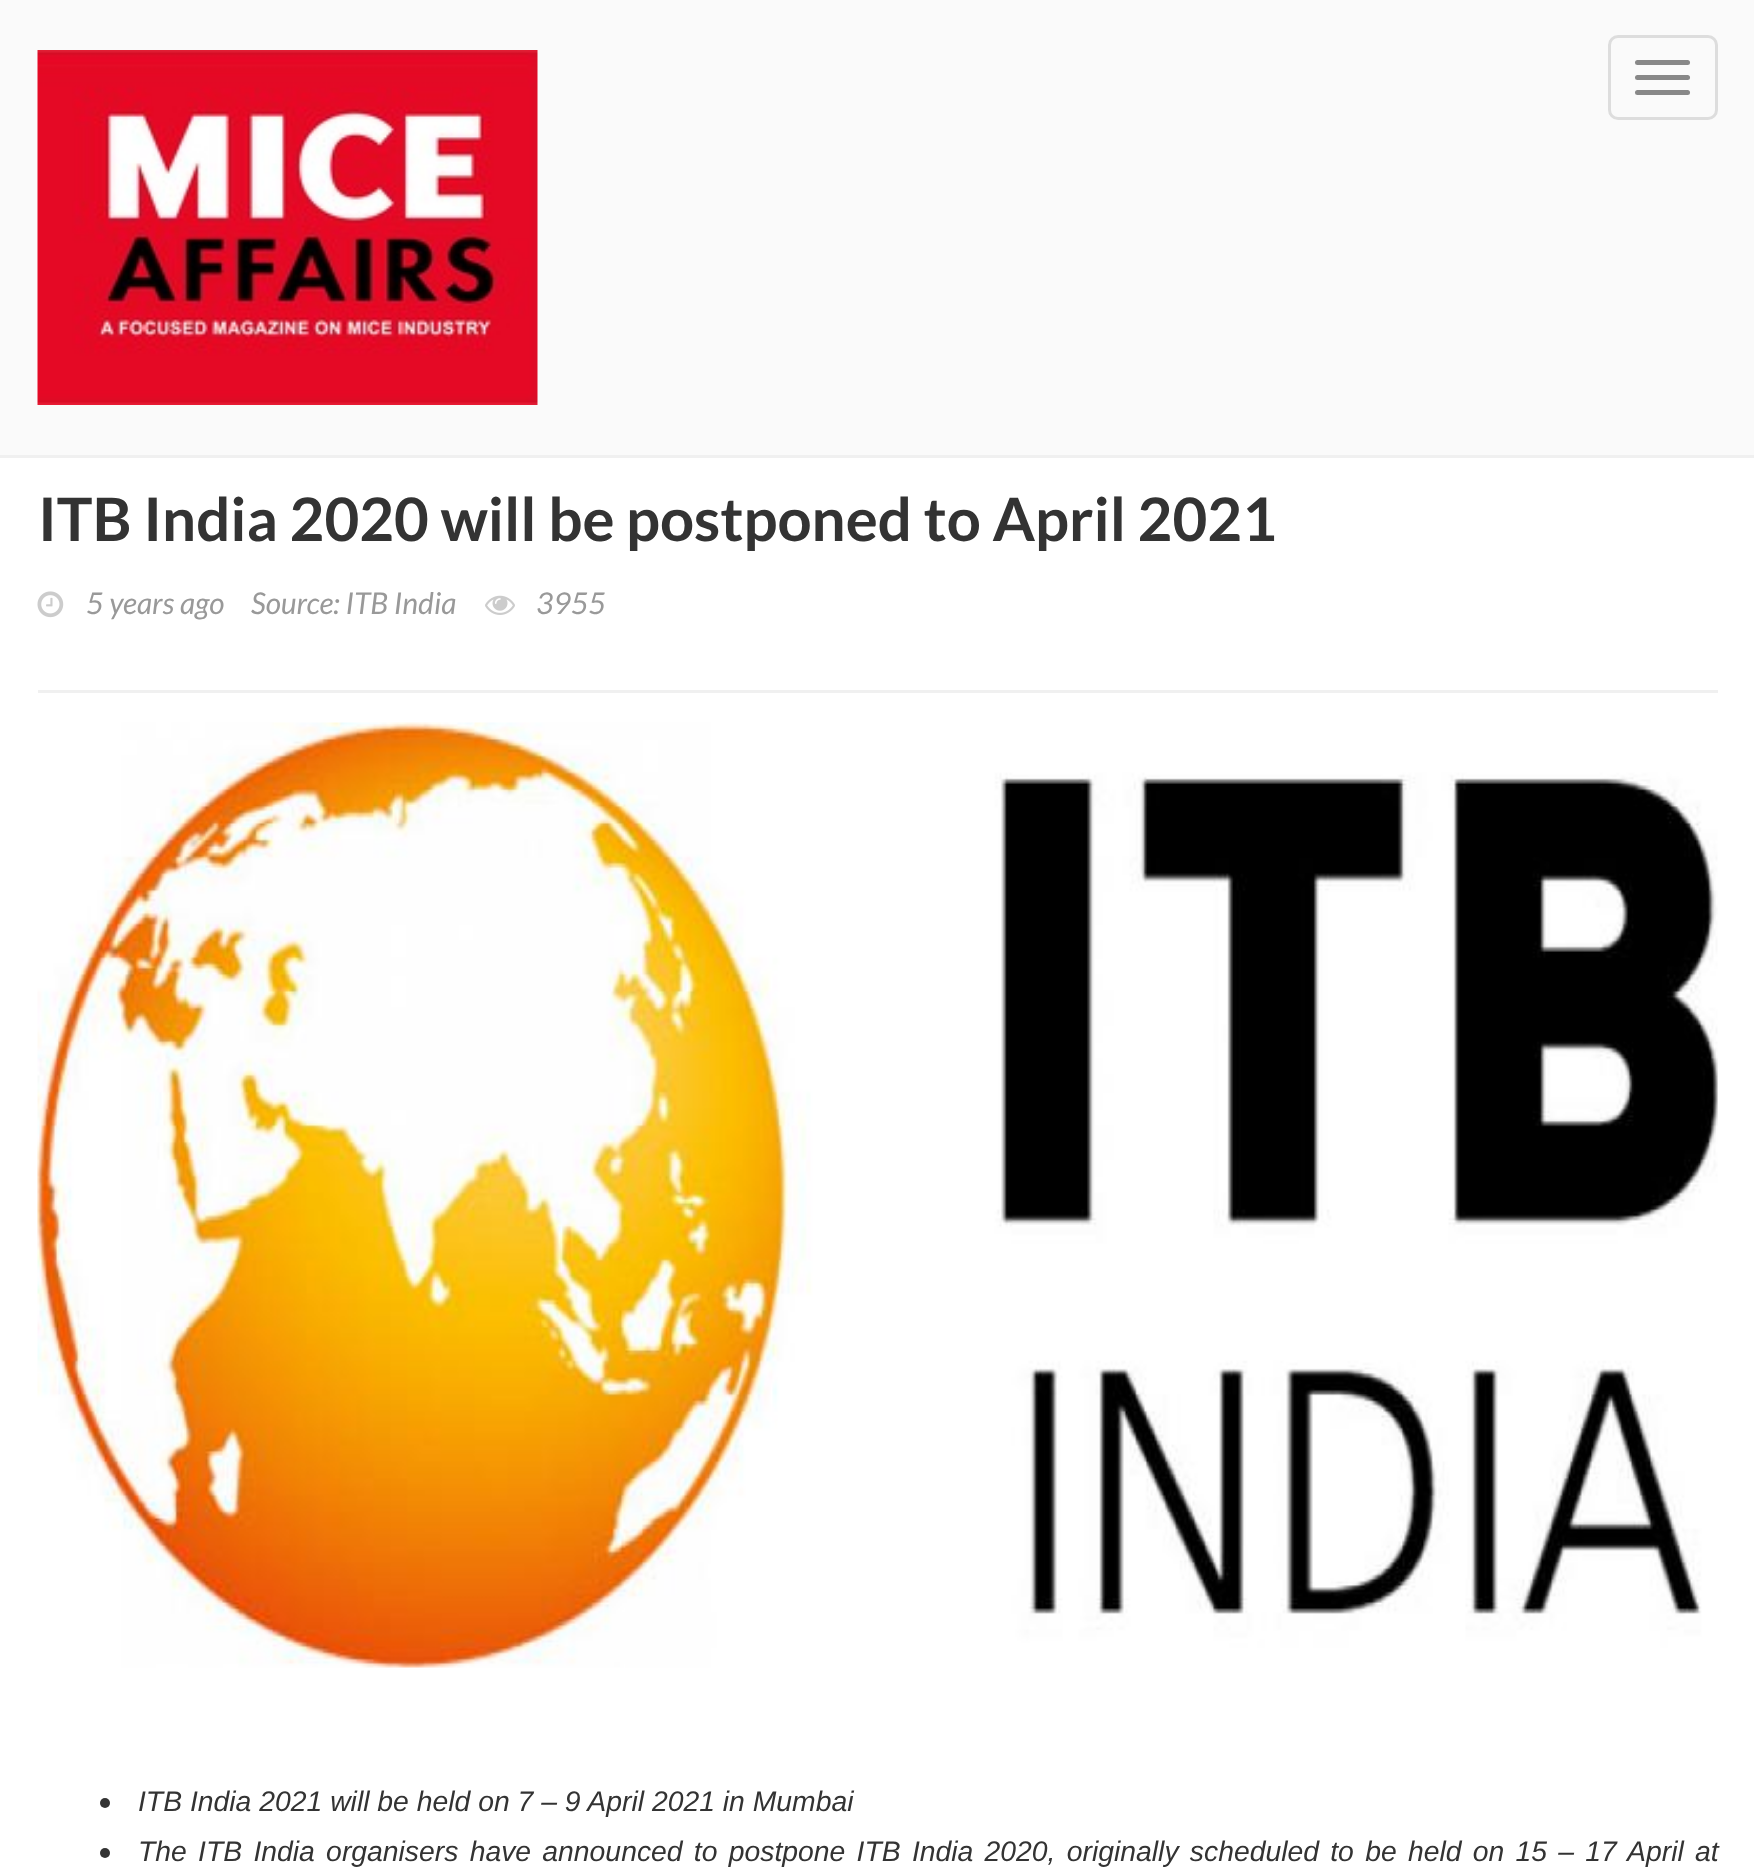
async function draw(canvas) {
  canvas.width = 1754;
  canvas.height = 1876;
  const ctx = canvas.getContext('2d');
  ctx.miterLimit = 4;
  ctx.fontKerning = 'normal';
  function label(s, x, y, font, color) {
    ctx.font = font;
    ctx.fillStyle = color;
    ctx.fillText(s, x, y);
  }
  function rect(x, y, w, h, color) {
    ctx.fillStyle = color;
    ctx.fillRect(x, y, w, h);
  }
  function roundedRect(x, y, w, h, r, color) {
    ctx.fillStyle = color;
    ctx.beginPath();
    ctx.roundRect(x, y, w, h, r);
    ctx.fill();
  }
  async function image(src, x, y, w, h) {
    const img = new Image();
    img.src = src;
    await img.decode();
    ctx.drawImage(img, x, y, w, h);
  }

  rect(0, 0, 1754, 1876, '#fff');
  rect(0, 0, 1754, 455, '#fafafa');
  await image('assets/img1.png', 37, 50, 501, 355);
  ctx.beginPath();
  ctx.roundRect(1609.5, 36.5, 107, 82, 8.5);
  ctx.strokeStyle = '#ddd';
  ctx.lineWidth = 3;
  ctx.stroke();
  roundedRect(1635, 60, 55, 5, 2.5, '#888');
  roundedRect(1635, 75, 55, 5, 2.5, '#888');
  roundedRect(1635, 90, 55, 5, 2.5, '#888');
  rect(0, 455, 1754, 3, '#f0f0f0');
  rect(38, 690, 1680, 3, '#f0f0f0');
  label('ITB India 2020 will be postponed to April 2021', 38, 541, 'bold 60px Lato', '#333');
  await image('assets/img2.png', 37, 591, 27, 27);
  label('5 years ago', 86, 614, 'italic 30px Lato', '#999');
  label('Source: ITB India', 251, 614, 'italic 30px Lato', '#999');
  await image('assets/img3.png', 485, 595, 30, 20);
  label('3955', 536, 614, 'italic 30px Lato', '#999');
  await image('assets/img4.png', 37, 722, 1681, 946);
  ctx.fillStyle = '#333';
  ctx.beginPath();
  ctx.arc(105, 1803, 5, 0, 2 * Math.PI);
  ctx.fill();
  label('ITB India 2021 will be held on 7 – 9 April 2021 in Mumbai', 138, 1811, 'italic 28.33px Liberation Sans', '#333');
  ctx.beginPath();
  ctx.arc(105, 1853, 5, 0, 2 * Math.PI);
  ctx.fill();
  ctx.wordSpacing = '3.4px';
  label('The ITB India organisers have announced to postpone ITB India 2020, originally scheduled to be held on 15 – 17 April at', 138, 1861, 'italic 28.33px Liberation Sans', '#333');
}

draw(document.querySelector('canvas'));
